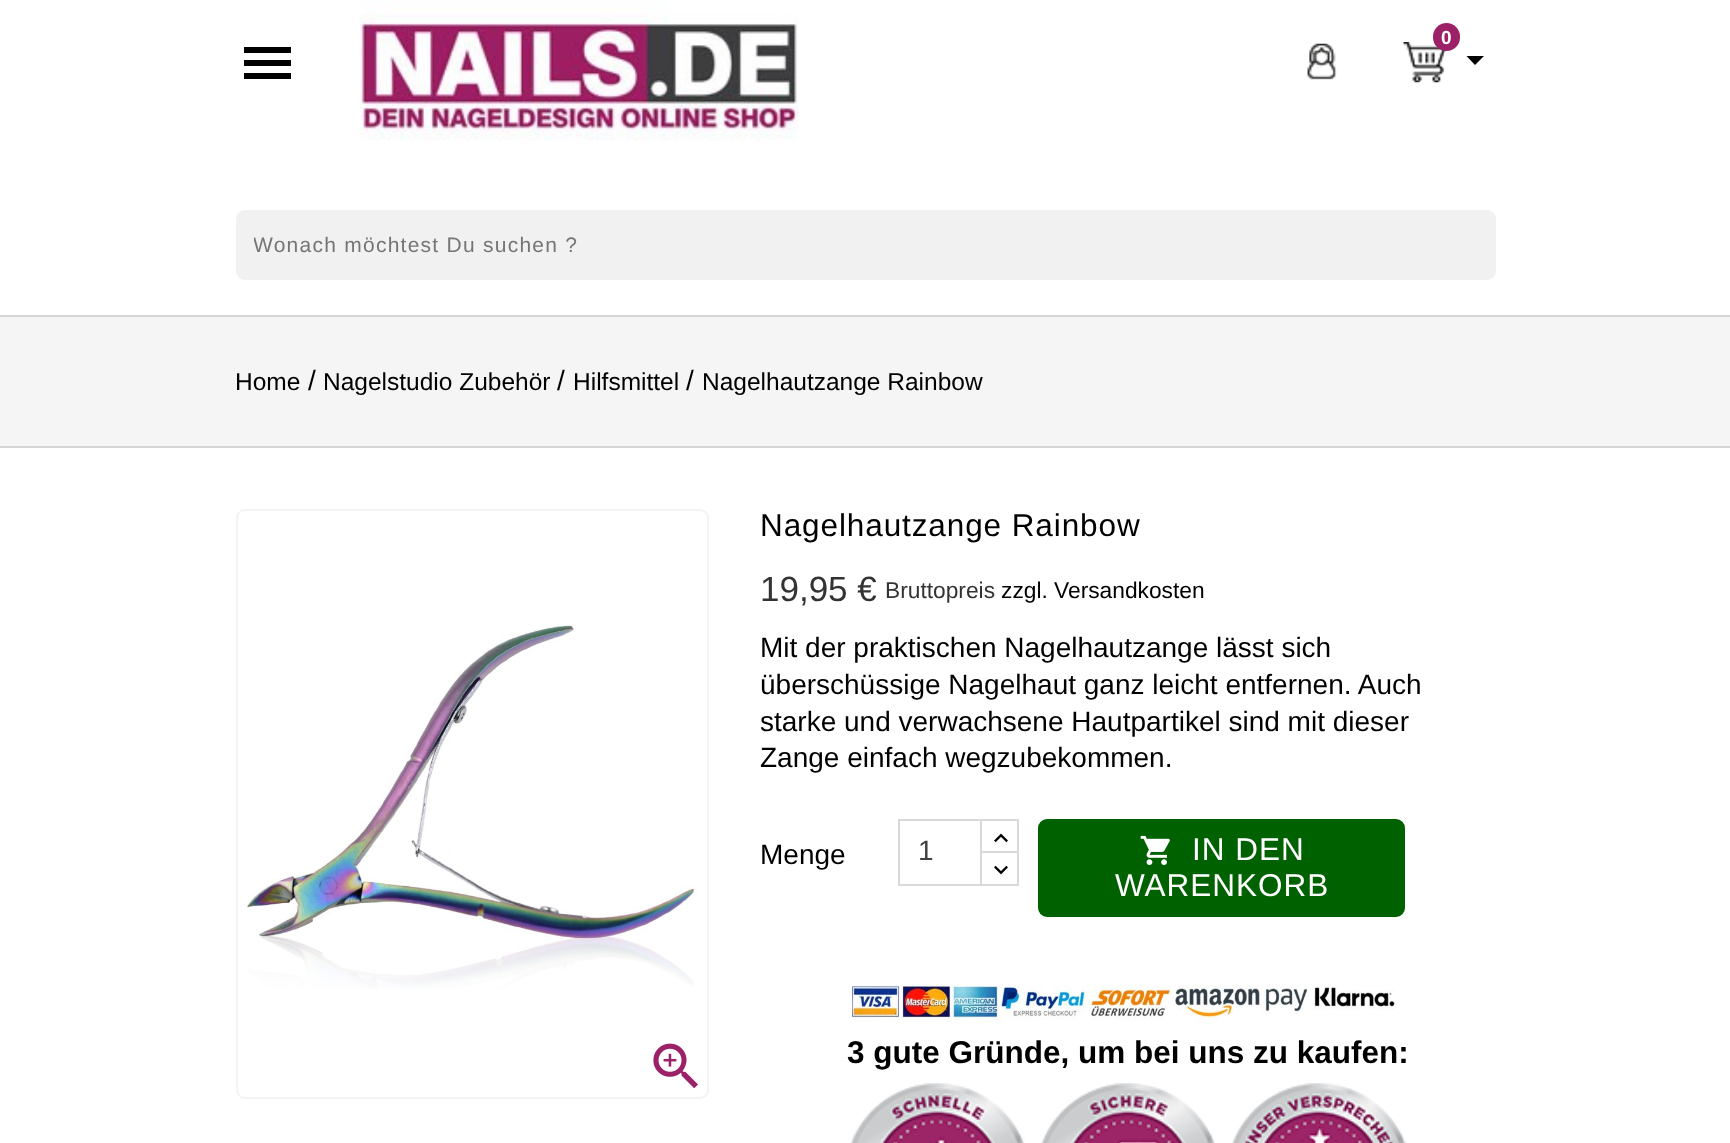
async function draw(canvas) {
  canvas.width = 1730;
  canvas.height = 1143;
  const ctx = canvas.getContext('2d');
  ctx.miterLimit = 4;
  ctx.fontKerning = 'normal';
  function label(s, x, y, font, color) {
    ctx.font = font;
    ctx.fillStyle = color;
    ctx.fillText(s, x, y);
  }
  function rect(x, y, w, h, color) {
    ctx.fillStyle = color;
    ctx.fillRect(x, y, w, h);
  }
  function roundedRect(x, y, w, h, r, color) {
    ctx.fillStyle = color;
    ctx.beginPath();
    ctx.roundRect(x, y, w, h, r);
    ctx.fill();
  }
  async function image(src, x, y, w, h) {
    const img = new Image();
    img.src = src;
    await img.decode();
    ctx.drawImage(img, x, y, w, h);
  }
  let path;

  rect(0, 0, 1730, 1143, '#fff');
  await image('assets/img1.png', 360, 0, 438, 141);
  await image('assets/img2.png', 1403, 42, 43, 41);
  roundedRect(1433, 23, 27, 28, 13.5, '#9c2167');
  label('0', 1441, 44, 'bold 19px Liberation Sans', '#fff');
  ctx.fillStyle = '#000';
  path = new Path2D('M1466.5 56H1484L1475 65Z');
  ctx.fill(path);
  path = new Path2D('M244 47H291V53H244ZM244 66V60H291V66ZM244 79V73H291V79Z');
  ctx.fill(path);
  await image('assets/img3.png', 1307, 43, 30, 37);
  roundedRect(236, 210, 1260, 70, 9, '#f1f1f1');
  ctx.save();
  ctx.beginPath();
  ctx.rect(254, 233, 1225, 24);
  ctx.clip();
  ctx.letterSpacing = '1.25px';
  label('Wonach möchtest Du suchen ?', 253, 252, '21px Liberation Sans', '#757575');
  ctx.restore();
  rect(0, 317, 1730, 129, '#f5f5f5');
  rect(0, 315, 1730, 2, '#d6d6d6');
  rect(0, 446, 1730, 2, '#d6d6d6');
  label('Home', 235, 390, '24.5px Liberation Sans', '#000');
  label('/', 308, 390, '28px Liberation Sans', '#000');
  label('Nagelstudio Zubehör', 323, 390, '24.5px Liberation Sans', '#000');
  label('/', 557, 390, '28px Liberation Sans', '#000');
  label('Hilfsmittel', 573, 390, '24.5px Liberation Sans', '#000');
  label('/', 686, 390, '28px Liberation Sans', '#000');
  label('Nagelhautzange Rainbow', 702, 390, '24.5px Liberation Sans', '#000');
  ctx.beginPath();
  ctx.roundRect(237, 510, 471, 588, 8);
  ctx.strokeStyle = '#f3f3f3';
  ctx.lineWidth = 2;
  ctx.stroke();
  await image('assets/img4.png', 247, 624, 451, 365);
  await image('assets/img5.png', 653, 1043, 45, 46);
  ctx.letterSpacing = '0.9px';
  label('Nagelhautzange Rainbow', 760, 536, '31.5px Liberation Sans', '#000');
  ctx.letterSpacing = '0px';
  label('19,95 €', 760, 601, '35px Liberation Sans', '#333');
  label('Bruttopreis', 885, 598, '22.75px Liberation Sans', '#333');
  label('zzgl. Versandkosten', 1001, 598, '22.75px Liberation Sans', '#000');
  label('Mit der praktischen Nagelhautzange lässt sich', 760, 657, '28px Liberation Sans', '#000');
  label('überschüssige Nagelhaut ganz leicht entfernen. Auch', 760, 694, '28px Liberation Sans', '#000');
  label('starke und verwachsene Hautpartikel sind mit dieser', 760, 731, '28px Liberation Sans', '#000');
  label('Zange einfach wegzubekommen.', 760, 767, '28px Liberation Sans', '#000');
  label('Menge', 760, 864, '28px Liberation Sans', '#000');
  ctx.strokeStyle = '#d9d9d9';
  ctx.strokeRect(981, 820, 37, 33);
  rect(982, 853, 35, 1, '#fff');
  ctx.strokeRect(981, 852, 37, 33);
  ctx.strokeRect(899, 820, 82, 65);
  label('1', 918, 860, '28px Liberation Sans', '#414141');
  await image('assets/img6.png', 994, 833, 14, 10);
  await image('assets/img7.png', 994, 865, 14, 10);
  ctx.fillStyle = '#006100';
  ctx.beginPath();
  ctx.roundRect(1039, 820, 365, 96, 8);
  ctx.fill();
  ctx.strokeStyle = '#006100';
  ctx.stroke();
  await image('assets/img8.png', 1140, 835, 30, 30);
  ctx.letterSpacing = '1px';
  label('IN DEN', 1192, 860, '31.5px Liberation Sans', '#fff');
  label('WARENKORB', 1115, 896, '31.5px Liberation Sans', '#fff');
  await image('assets/img9.png', 852, 985, 543, 40);
  ctx.letterSpacing = '0px';
  label('3 gute Gründe, um bei uns zu kaufen:', 847, 1063, 'bold 31.5px Liberation Sans', '#000');
  await image('assets/img10.png', 850, 1083, 175, 60);
  await image('assets/img11.png', 1041, 1083, 174, 60);
  await image('assets/img12.png', 1231, 1083, 175, 60);
}

draw(document.querySelector('canvas'));
